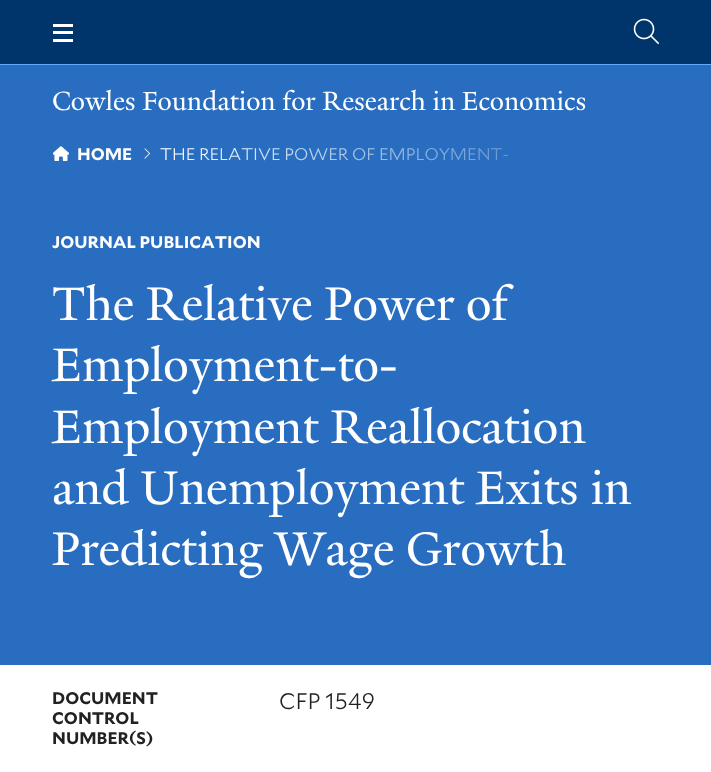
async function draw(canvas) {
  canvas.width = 711;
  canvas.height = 772;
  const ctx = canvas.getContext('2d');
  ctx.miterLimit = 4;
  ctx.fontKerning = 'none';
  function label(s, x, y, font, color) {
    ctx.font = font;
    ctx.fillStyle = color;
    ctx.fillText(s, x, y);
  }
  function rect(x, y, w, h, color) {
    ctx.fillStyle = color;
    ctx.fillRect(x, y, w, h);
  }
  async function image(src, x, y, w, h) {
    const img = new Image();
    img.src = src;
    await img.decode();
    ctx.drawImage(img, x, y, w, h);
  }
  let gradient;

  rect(0, 0, 711, 772, '#fff');
  rect(0, 65, 711, 600, '#286dc0');
  rect(0, 0, 711, 64, '#00356b');
  rect(0, 64, 711, 1, '#63aaff');
  rect(53, 31, 20, 3, '#fff');
  rect(53, 24, 20, 3, '#fff');
  rect(53, 39, 20, 3, '#fff');
  await image('assets/img1.png', 633, 18, 26, 26);
  label('Cowles Foundation for Research in Economics', 52, 110, '28.5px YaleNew', '#fff');
  await image('assets/img2.png', 53, 146, 16, 15);
  label('HOME', 77, 160, 'bold 16.9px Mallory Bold', '#fff');
  await image('assets/img3.png', 144, 148, 6, 11);
  label('THE RELATIVE POWER OF EMPLOYMENT-', 160, 160, '300 16.9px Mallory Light', '#fff');
  gradient = ctx.createLinearGradient(160, 154, 659, 154);
  gradient.addColorStop(0, '#286dc000');
  gradient.addColorStop(1, '#286dc0');
  ctx.fillStyle = gradient;
  ctx.fillRect(174, 148, 334, 13);
  label('JOURNAL PUBLICATION', 52, 248, 'bold 16.9px Mallory Bold', '#fff');
  label('The Relative Power of', 52, 320, '51px YaleNew', '#fff');
  label('Employment-to-', 52, 381, '51px YaleNew', '#fff');
  label('Employment Reallocation', 52, 443, '51px YaleNew', '#fff');
  label('and Unemployment Exits in', 52, 504, '51px YaleNew', '#fff');
  label('Predicting Wage Growth', 52, 565, '51px YaleNew', '#fff');
  label('DOCUMENT', 52, 704, 'bold 16.9px Mallory Bold', '#222');
  label('CONTROL', 52, 724, 'bold 16.9px Mallory Bold', '#222');
  label('NUMBER(S)', 52, 744, 'bold 16.9px Mallory Bold', '#222');
  label('CFP 1549', 279, 709, '300 22.5px Mallory Light', '#222');
}

draw(document.querySelector('canvas'));
